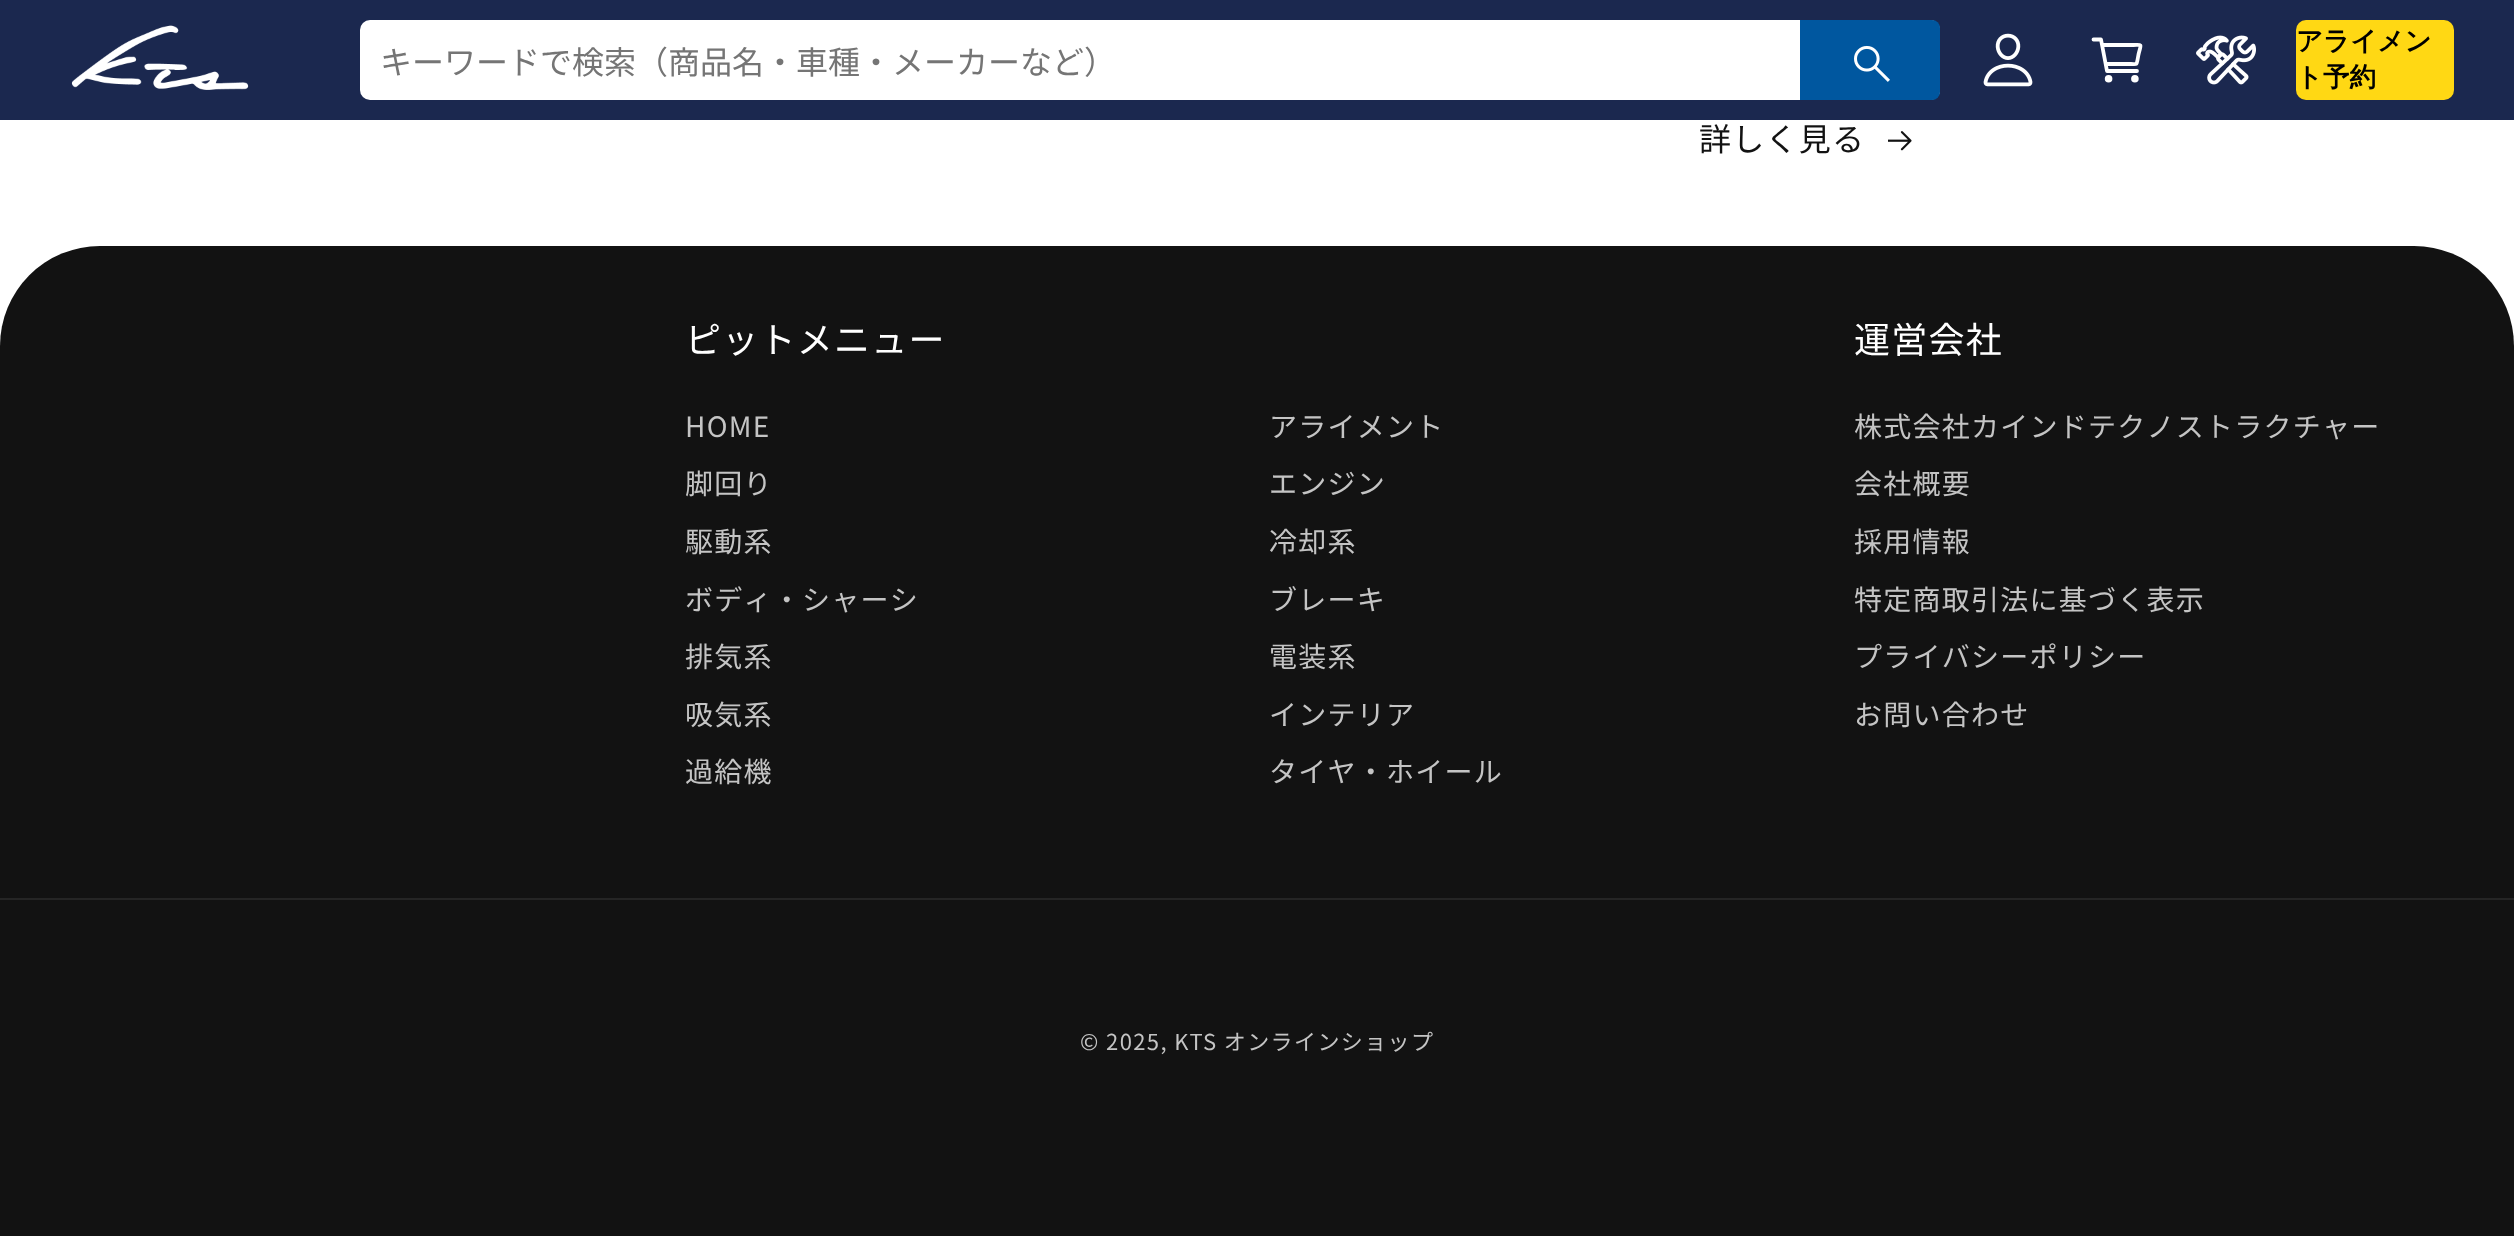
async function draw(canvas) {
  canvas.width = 2514;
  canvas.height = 1236;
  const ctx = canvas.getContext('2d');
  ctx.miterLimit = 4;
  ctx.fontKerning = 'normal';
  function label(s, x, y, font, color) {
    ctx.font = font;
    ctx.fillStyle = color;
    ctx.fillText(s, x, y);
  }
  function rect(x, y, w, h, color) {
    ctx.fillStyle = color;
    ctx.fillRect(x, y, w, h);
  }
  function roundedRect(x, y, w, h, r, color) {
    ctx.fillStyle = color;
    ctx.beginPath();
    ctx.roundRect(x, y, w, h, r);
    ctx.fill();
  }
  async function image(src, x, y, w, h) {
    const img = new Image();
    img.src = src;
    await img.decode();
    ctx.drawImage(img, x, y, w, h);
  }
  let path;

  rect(0, 0, 2514, 1236, '#fff');
  rect(0, 0, 2514, 120, '#1b284f');
  await image('assets/img1.png', 71, 25, 178, 65);
  roundedRect(360, 20, 1580, 80, 10, '#fff');
  ctx.fillStyle = '#00579f';
  ctx.beginPath();
  ctx.roundRect(1800, 20, 140, 80, [0, 8, 8, 0]);
  ctx.fill();
  label('キーワードで検索（商品名・車種・メーカーなど）', 380, 74, '32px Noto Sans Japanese', '#757575');
  await image('assets/img2.png', 1854, 45, 36, 37);
  await image('assets/img3.png', 1983, 33, 50, 54);
  ctx.beginPath();
  ctx.arc(2108.6, 78.8, 1.9, 0, 2 * Math.PI);
  ctx.strokeStyle = '#fff';
  ctx.lineWidth = 3.8;
  ctx.stroke();
  ctx.beginPath();
  ctx.arc(2134.9, 78.8, 1.9, 0, 2 * Math.PI);
  ctx.stroke();
  path = new Path2D('M2093.5 39.5H2101L2107 71H2137M2107 64H2131C2137 64 2136.5 65 2137.5 60L2138.5 54.5C2141 43.5 2143 45 2133.5 45H2103');
  ctx.lineCap = 'round';
  ctx.lineJoin = 'round';
  ctx.stroke(path);
  await image('assets/img4.png', 2196, 35, 60, 50);
  roundedRect(2296, 20, 158, 80, 10, '#ffd814');
  label('アライメン', 2296, 50, 'bold 26.5px WenQuanYi Zen Hei', '#000');
  label('ト予約', 2296, 86, 'bold 26.5px WenQuanYi Zen Hei', '#000');
  ctx.letterSpacing = '1.25px';
  label('詳しく見る', 1699, 151, '32px Noto Sans Japanese', '#121212');
  await image('assets/img5.png', 1888, 131, 24, 20);
  ctx.beginPath();
  ctx.roundRect(0, 246, 2514, 990, [100, 100, 0, 0]);
  ctx.fill();
  label('ピットメニュー', 685, 353, '36px Noto Sans Japanese', '#fff');
  label('HOME', 685, 437, '28px Noto Sans Japanese', '#c4c4c4');
  label('脚回り', 685, 494, '28px Noto Sans Japanese', '#c4c4c4');
  label('駆動系', 685, 552, '28px Noto Sans Japanese', '#c4c4c4');
  label('ボディ・シャーシ', 685, 610, '28px Noto Sans Japanese', '#c4c4c4');
  label('排気系', 685, 667, '28px Noto Sans Japanese', '#c4c4c4');
  label('吸気系', 685, 725, '28px Noto Sans Japanese', '#c4c4c4');
  label('過給機', 685, 782, '28px Noto Sans Japanese', '#c4c4c4');
  label('アライメント', 1269, 437, '28px Noto Sans Japanese', '#c4c4c4');
  label('エンジン', 1269, 494, '28px Noto Sans Japanese', '#c4c4c4');
  label('冷却系', 1269, 552, '28px Noto Sans Japanese', '#c4c4c4');
  label('ブレーキ', 1269, 610, '28px Noto Sans Japanese', '#c4c4c4');
  label('電装系', 1269, 667, '28px Noto Sans Japanese', '#c4c4c4');
  label('インテリア', 1269, 725, '28px Noto Sans Japanese', '#c4c4c4');
  label('タイヤ・ホイール', 1269, 782, '28px Noto Sans Japanese', '#c4c4c4');
  label('運営会社', 1854, 353, '36px Noto Sans Japanese', '#fff');
  label('株式会社カインドテクノストラクチャー', 1854, 437, '28px Noto Sans Japanese', '#c4c4c4');
  label('会社概要', 1854, 494, '28px Noto Sans Japanese', '#c4c4c4');
  label('採用情報', 1854, 552, '28px Noto Sans Japanese', '#c4c4c4');
  label('特定商取引法に基づく表示', 1854, 610, '28px Noto Sans Japanese', '#c4c4c4');
  label('プライバシーポリシー', 1854, 667, '28px Noto Sans Japanese', '#c4c4c4');
  label('お問い合わせ', 1854, 725, '28px Noto Sans Japanese', '#c4c4c4');
  rect(0, 898, 2514, 2, '#252525');
  ctx.letterSpacing = '1.4px';
  label('© 2025, KTS オンラインショップ', 1080, 1050, '22px Noto Sans Japanese', '#c4c4c4');
}

draw(document.querySelector('canvas'));
